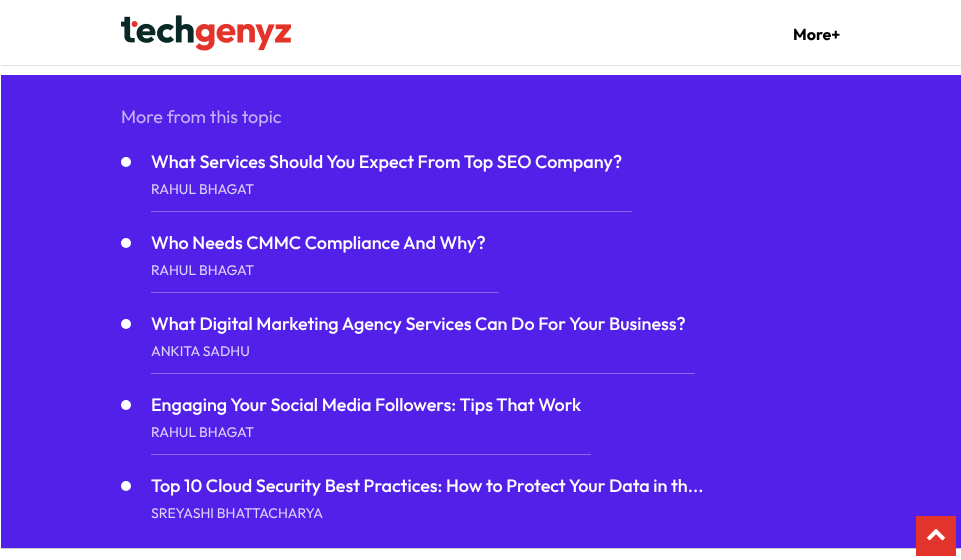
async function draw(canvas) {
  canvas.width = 961;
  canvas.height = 560;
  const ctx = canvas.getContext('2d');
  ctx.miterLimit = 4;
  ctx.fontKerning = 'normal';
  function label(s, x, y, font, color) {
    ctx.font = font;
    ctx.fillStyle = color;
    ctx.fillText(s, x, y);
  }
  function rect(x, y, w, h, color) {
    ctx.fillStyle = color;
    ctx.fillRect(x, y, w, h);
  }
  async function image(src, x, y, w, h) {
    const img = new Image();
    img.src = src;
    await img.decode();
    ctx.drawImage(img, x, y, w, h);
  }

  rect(0, 0, 961, 560, '#fff');
  await image('assets/img1.png', 121, 15, 170, 36);
  label('More+', 793, 40, 'bold 16px Outfit', '#000');
  rect(1, 65, 960, 1, '#e1e1e1');
  rect(1, 75, 960, 473, '#5220e9');
  label('More from this topic', 121, 123, '18px Outfit', '#c4b3f8');
  ctx.fillStyle = '#fff';
  ctx.beginPath();
  ctx.arc(126, 162, 5, 0, 2 * Math.PI);
  ctx.fill();
  label('What Services Should You Expect From Top SEO Company?', 151, 168, '500 18px Outfit', '#fff');
  label('RAHUL BHAGAT', 151, 194, '14px Outfit', '#dcd2fb');
  rect(151, 211, 481, 1, '#8967f0');
  ctx.fillStyle = '#fff';
  ctx.beginPath();
  ctx.arc(126, 243, 5, 0, 2 * Math.PI);
  ctx.fill();
  label('Who Needs CMMC Compliance And Why?', 151, 249, '500 18px Outfit', '#fff');
  label('RAHUL BHAGAT', 151, 275, '14px Outfit', '#dcd2fb');
  rect(151, 292, 348, 1, '#8967f0');
  ctx.fillStyle = '#fff';
  ctx.beginPath();
  ctx.arc(126, 324, 5, 0, 2 * Math.PI);
  ctx.fill();
  label('What Digital Marketing Agency Services Can Do For Your Business?', 151, 330, '500 18px Outfit', '#fff');
  label('ANKITA SADHU', 151, 356, '14px Outfit', '#dcd2fb');
  rect(151, 373, 544, 1, '#8967f0');
  ctx.fillStyle = '#fff';
  ctx.beginPath();
  ctx.arc(126, 405, 5, 0, 2 * Math.PI);
  ctx.fill();
  label('Engaging Your Social Media Followers: Tips That Work', 151, 411, '500 18px Outfit', '#fff');
  label('RAHUL BHAGAT', 151, 437, '14px Outfit', '#dcd2fb');
  rect(151, 454, 440, 1, '#8967f0');
  ctx.fillStyle = '#fff';
  ctx.beginPath();
  ctx.arc(126, 486, 5, 0, 2 * Math.PI);
  ctx.fill();
  label('Top 10 Cloud Security Best Practices: How to Protect Your Data in th...', 151, 492, '500 18px Outfit', '#fff');
  label('SREYASHI BHATTACHARYA', 151, 518, '14px Outfit', '#dcd2fb');
  rect(1, 548, 960, 1, '#ccc');
  rect(916, 516, 40, 40, '#e2342b');
  await image('assets/img2.png', 927, 528, 18, 13);
}

draw(document.querySelector('canvas'));
